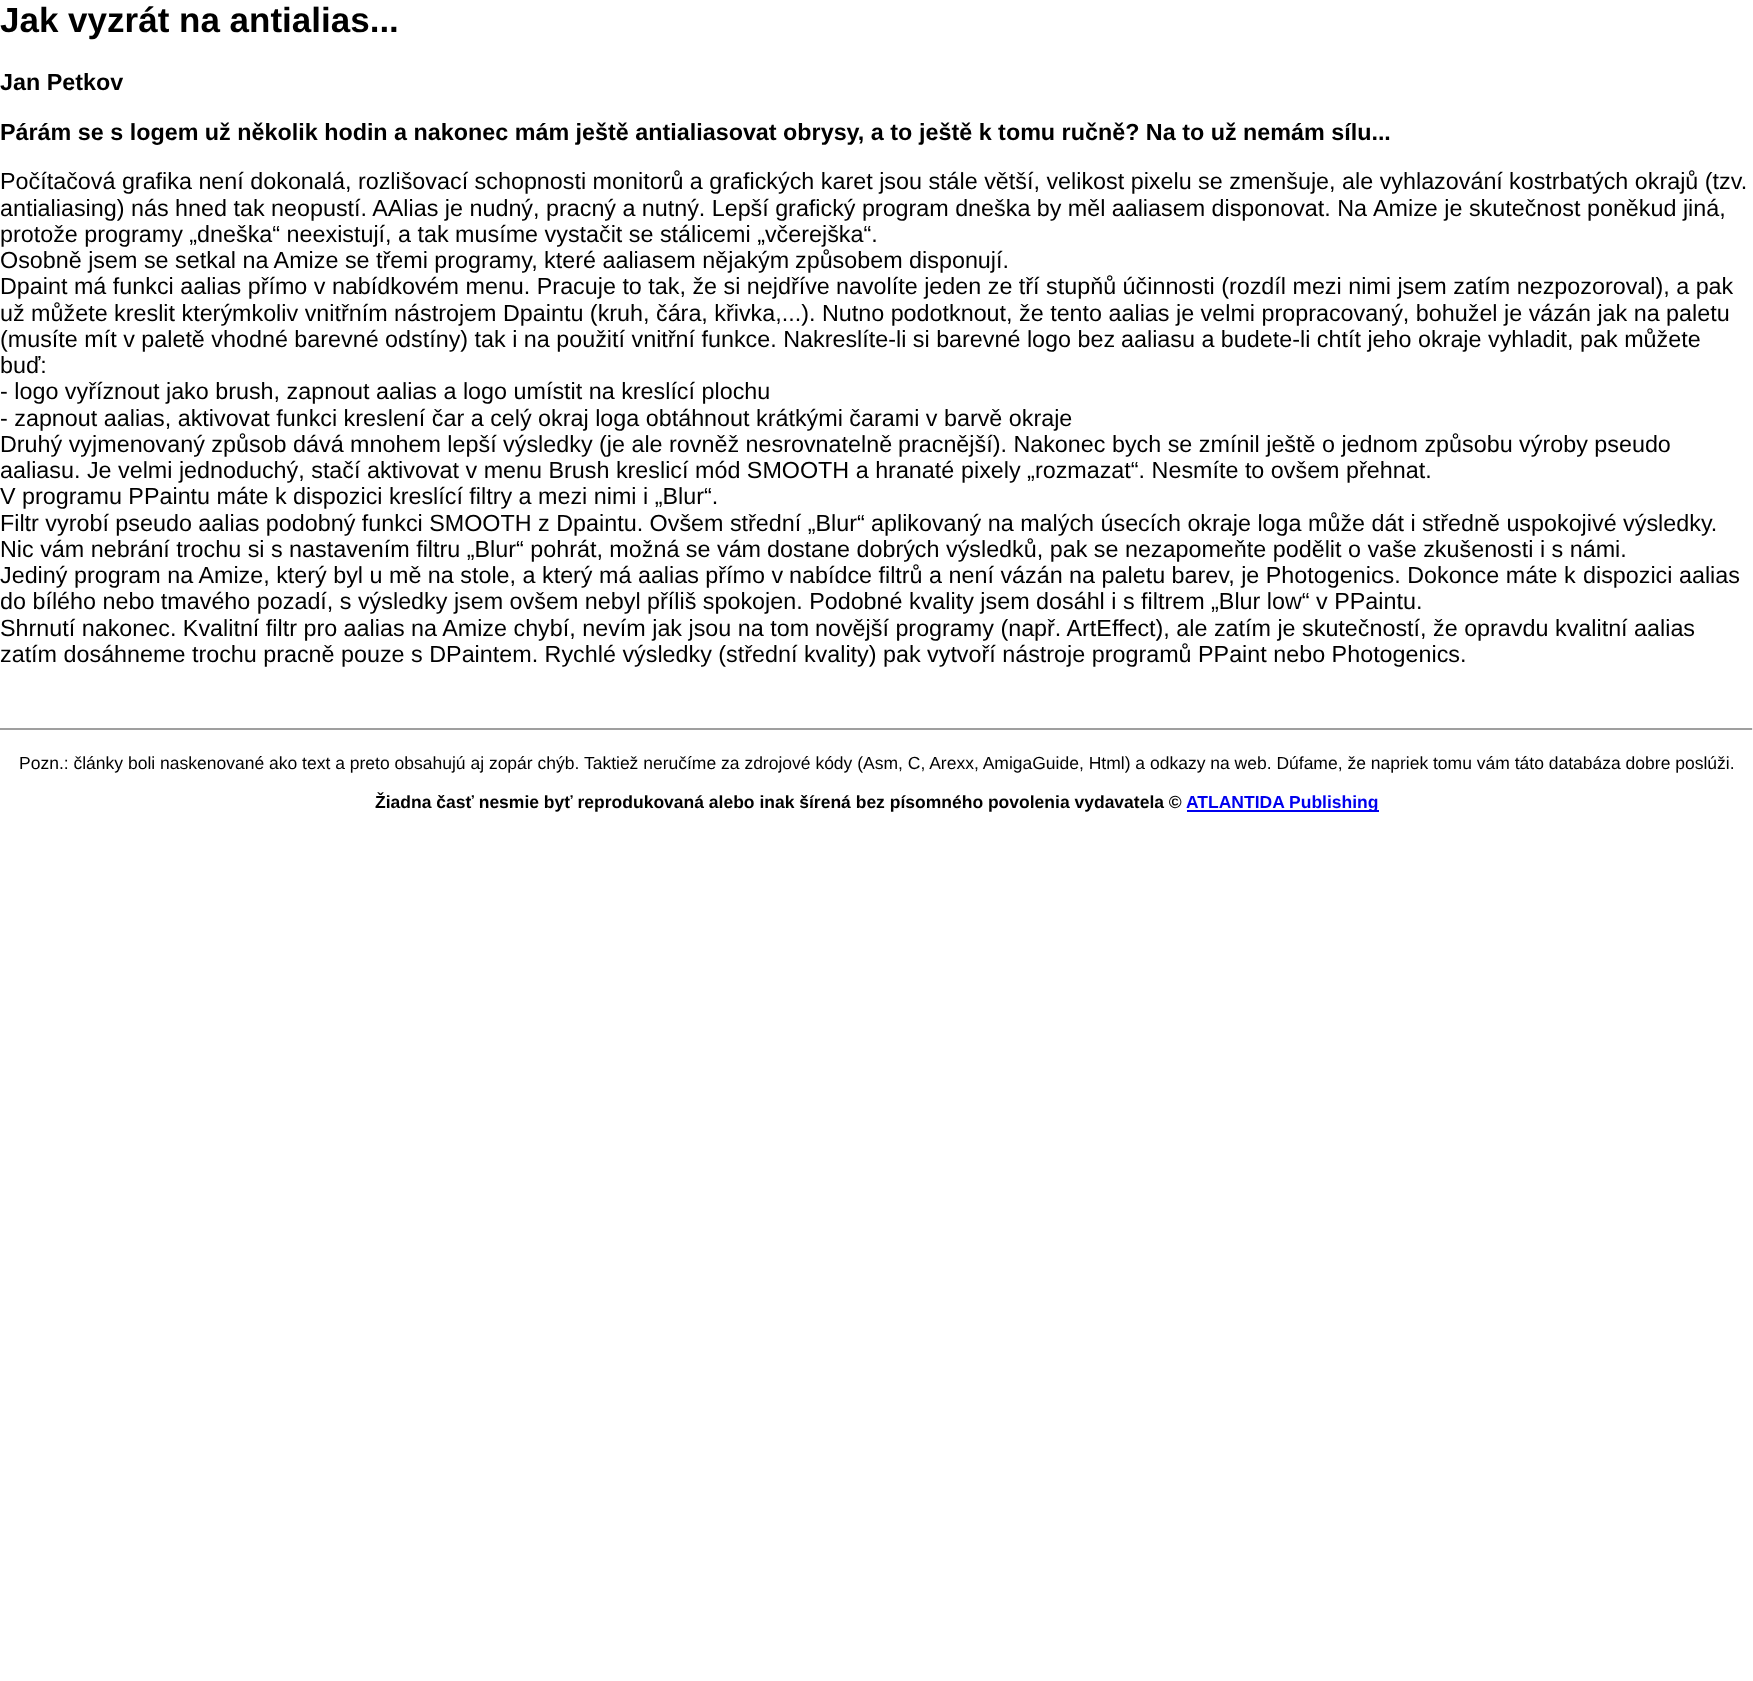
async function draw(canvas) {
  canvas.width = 1753;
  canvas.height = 1681;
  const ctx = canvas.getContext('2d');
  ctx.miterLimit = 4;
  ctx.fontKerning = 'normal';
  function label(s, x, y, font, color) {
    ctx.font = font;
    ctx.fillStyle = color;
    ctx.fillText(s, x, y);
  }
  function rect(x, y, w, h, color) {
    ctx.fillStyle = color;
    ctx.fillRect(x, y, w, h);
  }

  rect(0, 0, 1753, 1681, '#fff');
  label('Jak vyzrát na antialias...', 0, 32, 'bold 35px Liberation Sans', '#000');
  label('Jan Petkov', 0, 90, 'bold 23.33px Liberation Sans', '#000');
  label('Párám se s logem už několik hodin a nakonec mám ještě antialiasovat obrysy, a to', 0, 140, 'bold 23.33px Liberation Sans', '#000');
  label('ještě k tomu ručně? Na to už nemám sílu...', 919, 140, 'bold 23.33px Liberation Sans', '#000');
  label('Počítačová grafika není dokonalá, rozlišovací schopnosti monitorů a grafických karet jsou stále větší, velikost pixelu se zmenšuje, ale vyhlazování', 0, 189, '23.33px Liberation Sans', '#000');
  label('kostrbatých okrajů (tzv.', 1509, 189, '23.33px Liberation Sans', '#000');
  label('antialiasing) nás hned tak neopustí. AAlias je nudný,', 0, 216, '23.33px Liberation Sans', '#000');
  ctx.wordSpacing = '-0.1px';
  label('pracný a nutný. Lepší grafický program dneška by měl aaliasem disponovat. Na', 546, 216, '23.33px Liberation Sans', '#000');
  ctx.wordSpacing = '0px';
  label('Amize je skutečnost poněkud jiná,', 1373, 216, '23.33px Liberation Sans', '#000');
  label('protože programy „dneška“ neexistují, a tak musíme vystačit se stálicemi „včerejška“.', 0, 242, '23.33px Liberation Sans', '#000');
  label('Osobně jsem se setkal na Amize se třemi programy, které aaliasem nějakým', 0, 268, '23.33px Liberation Sans', '#000');
  label('způsobem disponují.', 795, 268, '23.33px Liberation Sans', '#000');
  label('Dpaint má funkci aalias přímo v nabídkovém menu. Pracuje to tak, že si nejdříve', 0, 294, '23.33px Liberation Sans', '#000');
  label('navolíte jeden ze tří stupňů účinnosti (rozdíl mezi nimi jsem zatím nezpozoroval), a pak', 836, 294, '23.33px Liberation Sans', '#000');
  label('už můžete kreslit kterýmkoliv vnitřním nástrojem Dpaintu (kruh, čára, křivka,...). Nutno podotknout, že tento aalias je velmi propracovaný, bohužel je vázán jak na paletu', 0, 321, '23.33px Liberation Sans', '#000');
  label('(musíte mít v paletě vhodné barevné odstíny) tak i na použití vnitřní funkce. Nakreslíte-li si barevné logo bez', 0, 347, '23.33px Liberation Sans', '#000');
  label('aaliasu a budete-li chtít jeho okraje vyhladit, pak můžete', 1121, 347, '23.33px Liberation Sans', '#000');
  label('buď:', 0, 373, '23.33px Liberation Sans', '#000');
  label('- logo vyříznout jako brush, zapnout aalias a logo umístit na kreslící plochu', 0, 399, '23.33px Liberation Sans', '#000');
  label('- zapnout aalias, aktivovat funkci kreslení čar a celý okraj loga obtáhnout', 0, 426, '23.33px Liberation Sans', '#000');
  label('krátkými čarami v barvě okraje', 756, 426, '23.33px Liberation Sans', '#000');
  label('Druhý vyjmenovaný způsob dává mnohem lepší výsledky (je ale rovněž nesrovnatelně', 0, 452, '23.33px Liberation Sans', '#000');
  label('pracnější). Nakonec bych se zmínil ještě o jednom způsobu výroby pseudo', 898, 452, '23.33px Liberation Sans', '#000');
  label('aaliasu. Je velmi jednoduchý, stačí aktivovat v menu Brush kreslicí mód SMOOTH a hranaté', 0, 478, '23.33px Liberation Sans', '#000');
  label('pixely „rozmazat“. Nesmíte to ovšem přehnat.', 961, 478, '23.33px Liberation Sans', '#000');
  label('V programu PPaintu máte k dispozici kreslící filtry a mezi nimi i „Blur“.', 0, 504, '23.33px Liberation Sans', '#000');
  label('Filtr vyrobí pseudo aalias podobný funkci SMOOTH z Dpaintu. Ovšem střední „Blur“', 0, 531, '23.33px Liberation Sans', '#000');
  label('aplikovaný na malých úsecích okraje loga může dát i středně uspokojivé výsledky.', 871, 531, '23.33px Liberation Sans', '#000');
  label('Nic vám nebrání trochu si s nastavením filtru „Blur“ pohrát, možná se vám', 0, 557, '23.33px Liberation Sans', '#000');
  label('dostane dobrých výsledků, pak se nezapomeňte podělit o vaše zkušenosti i s námi.', 767, 557, '23.33px Liberation Sans', '#000');
  label('Jediný program na Amize, který byl u mě na stole, a který má aalias přímo v', 0, 583, '23.33px Liberation Sans', '#000');
  label('nabídce filtrů a není vázán na paletu barev, je Photogenics. Dokonce máte k', 789, 583, '23.33px Liberation Sans', '#000');
  label('dispozici aalias', 1583, 583, '23.33px Liberation Sans', '#000');
  label('do bílého nebo tmavého pozadí, s výsledky jsem ovšem nebyl příliš spokojen. Podobné kvality jsem dosáhl i s filtrem „Blur low“ v PPaintu.', 0, 609, '23.33px Liberation Sans', '#000');
  label('Shrnutí nakonec. Kvalitní filtr pro aalias na Amize chybí, nevím jak jsou na tom', 0, 636, '23.33px Liberation Sans', '#000');
  label('novější programy (např. ArtEffect), ale zatím je skutečností, že opravdu', 815, 636, '23.33px Liberation Sans', '#000');
  label('kvalitní aalias', 1555, 636, '23.33px Liberation Sans', '#000');
  label('zatím dosáhneme trochu pracně pouze s DPaintem. Rychlé výsledky (střední kvality) pak vytvoří nástroje programů PPaint nebo Photogenics.', 0, 662, '23.33px Liberation Sans', '#000');
  rect(0, 728, 1753, 2, '#9f9f9f');
  rect(1752, 728, 1, 2, '#eee');
  label('Pozn.: články boli naskenované ako text a preto obsahujú aj zopár chýb. Taktiež neručíme za zdrojové kódy (Asm, C, Arexx, AmigaGuide, Html) a odkazy na web. Dúfame, že napriek tomu vám táto databáza dobre poslúži.', 19, 769, '17.5px Liberation Sans', '#000');
  label('Žiadna časť nesmie byť reprodukovaná alebo inak šírená bez písomného povolenia vydavatela ©', 375, 808, 'bold 17.5px Liberation Sans', '#000');
  rect(1187, 810, 192, 2, '#00e');
  label('ATLANTIDA Publishing', 1186, 808, 'bold 17.5px Liberation Sans', '#00e');
}

draw(document.querySelector('canvas'));
